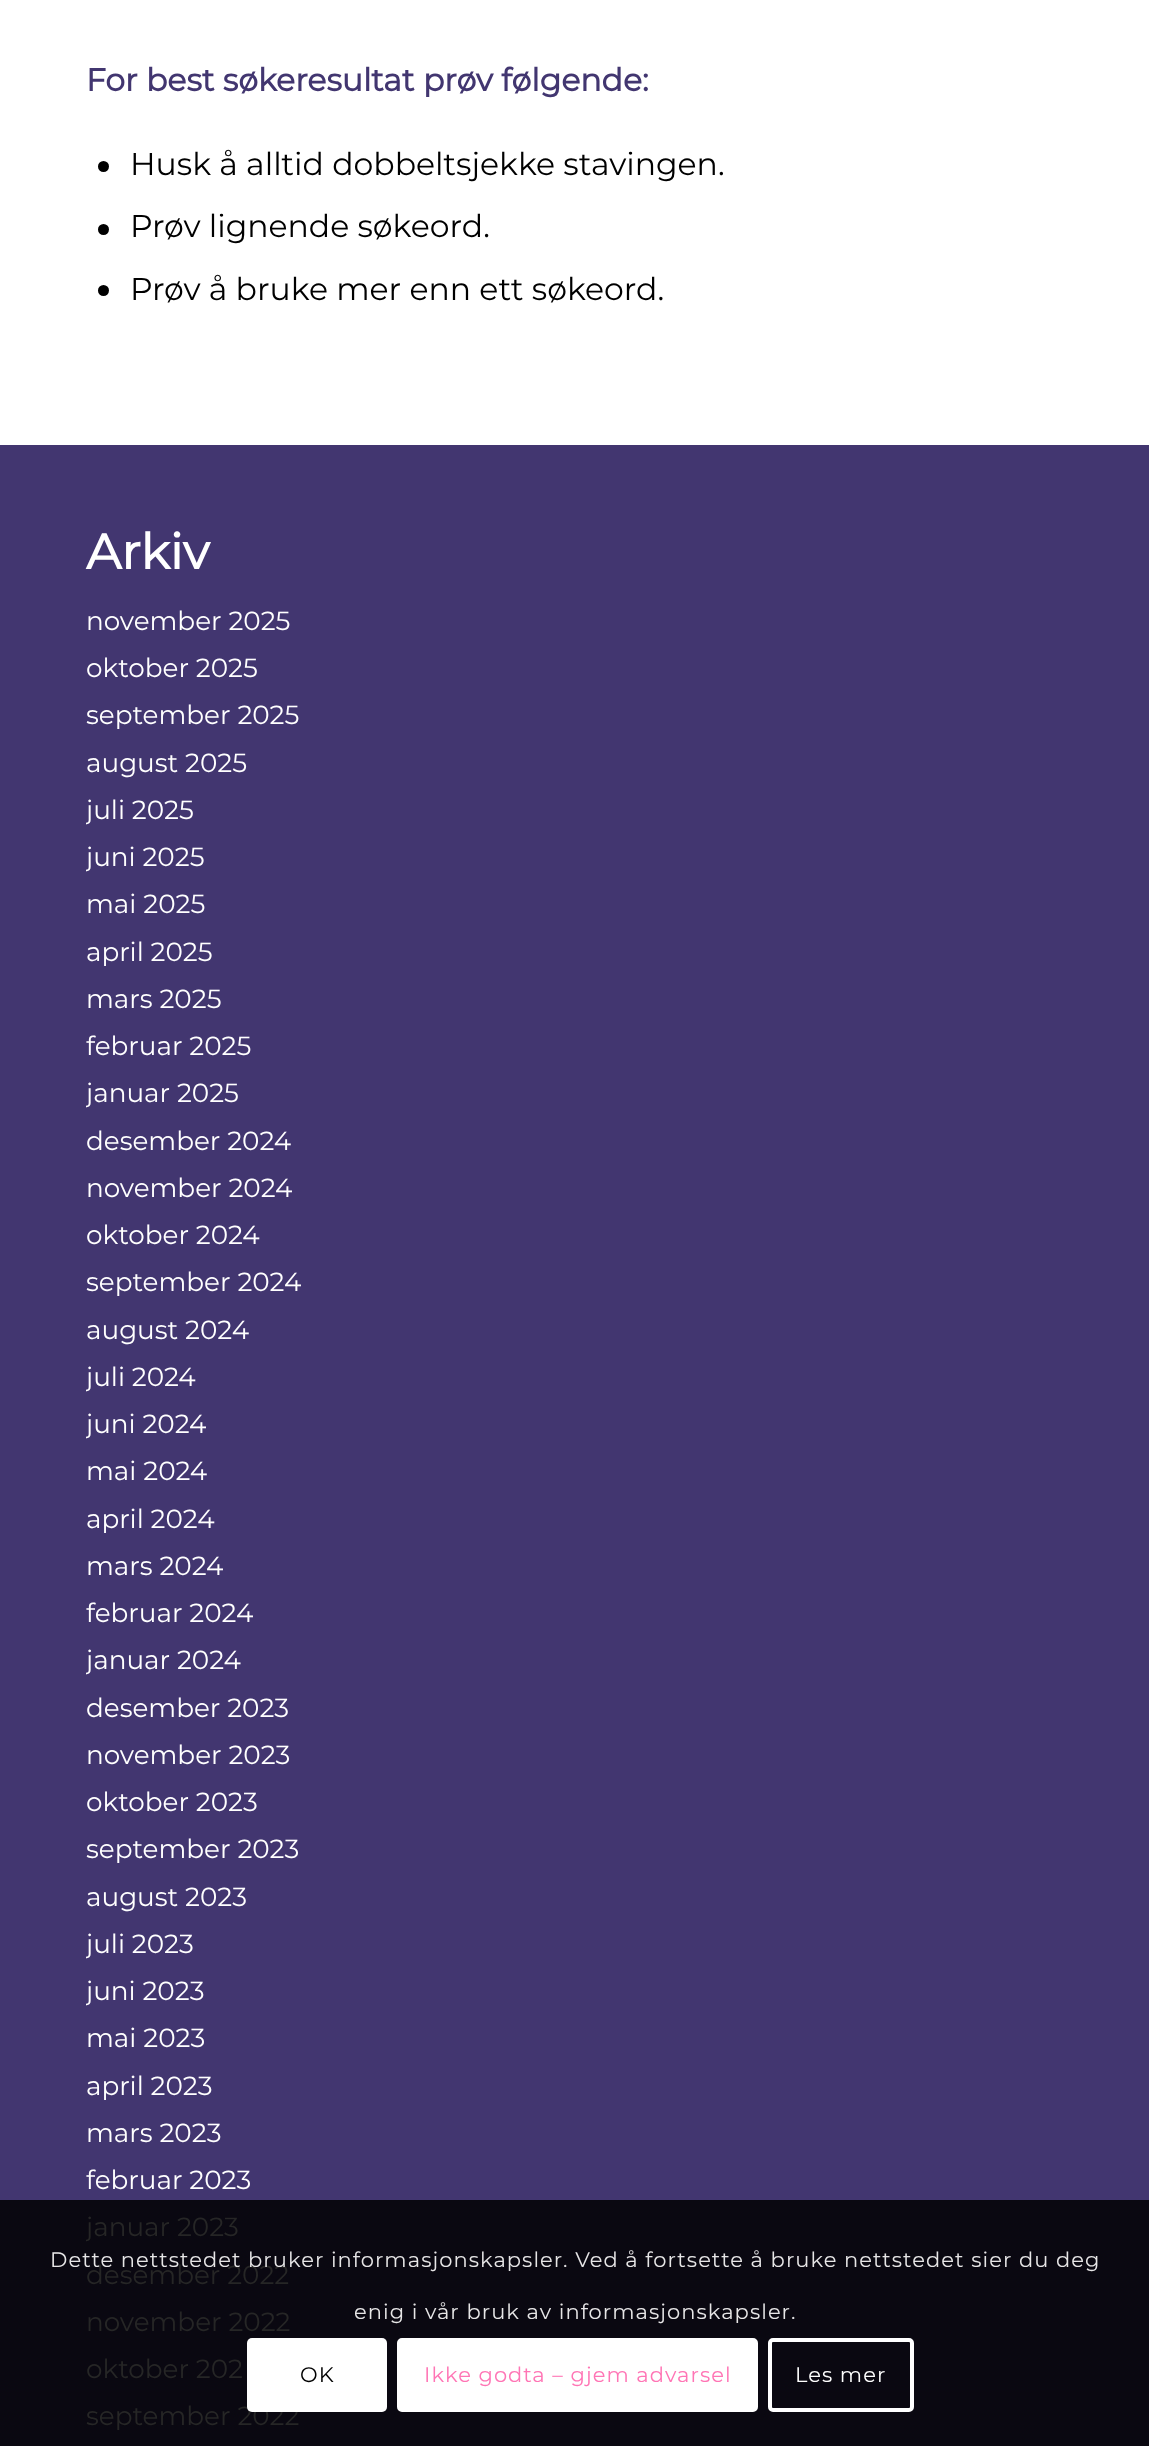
async function draw(canvas) {
  canvas.width = 1149;
  canvas.height = 2446;
  const ctx = canvas.getContext('2d');
  ctx.miterLimit = 4;
  ctx.fontKerning = 'normal';
  function label(s, x, y, font, color) {
    ctx.font = font;
    ctx.fillStyle = color;
    ctx.fillText(s, x, y);
  }
  function rect(x, y, w, h, color) {
    ctx.fillStyle = color;
    ctx.fillRect(x, y, w, h);
  }
  function roundedRect(x, y, w, h, r, color) {
    ctx.fillStyle = color;
    ctx.beginPath();
    ctx.roundRect(x, y, w, h, r);
    ctx.fill();
  }

  rect(0, 0, 1149, 2446, '#423670');
  rect(0, 2200, 1149, 246, '#0a0811');
  rect(0, 0, 1149, 445, '#fff');
  label('For best søkeresultat prøv følgende:', 86, 91, 'bold 31.5px Montserrat', '#423670');
  ctx.fillStyle = '#000';
  ctx.beginPath();
  ctx.arc(103.5, 166.5, 5.5, 0, 2 * Math.PI);
  ctx.fill();
  label('Husk å alltid dobbeltsjekke stavingen.', 130, 175, '100 31.5px Montserrat', '#000');
  ctx.beginPath();
  ctx.arc(103.5, 229.5, 5.5, 0, 2 * Math.PI);
  ctx.fill();
  label('Prøv lignende søkeord.', 130, 237, '100 31.5px Montserrat', '#000');
  ctx.beginPath();
  ctx.arc(103.5, 290.5, 5.5, 0, 2 * Math.PI);
  ctx.fill();
  label('Prøv å bruke mer enn ett søkeord.', 130, 300, '100 31.5px Montserrat', '#000');
  label('Arkiv', 86, 569, 'bold 49px Montserrat', '#fff');
  label('november 2025', 86, 630, '100 26.25px Montserrat', '#fff');
  label('oktober 2025', 86, 677, '100 26.25px Montserrat', '#fff');
  label('september 2025', 86, 724, '100 26.25px Montserrat', '#fff');
  label('august 2025', 86, 772, '100 26.25px Montserrat', '#fff');
  ctx.save();
  ctx.beginPath();
  ctx.rect(86, 525, 978, 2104);
  ctx.clip();
  label('juli 2025', 86, 819, '100 26.25px Montserrat', '#fff');
  label('juni 2025', 86, 866, '100 26.25px Montserrat', '#fff');
  ctx.restore();
  label('mai 2025', 86, 913, '100 26.25px Montserrat', '#fff');
  label('april 2025', 86, 961, '100 26.25px Montserrat', '#fff');
  label('mars 2025', 86, 1008, '100 26.25px Montserrat', '#fff');
  label('februar 2025', 86, 1055, '100 26.25px Montserrat', '#fff');
  ctx.save();
  ctx.beginPath();
  ctx.rect(86, 525, 978, 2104);
  ctx.clip();
  label('januar 2025', 86, 1102, '100 26.25px Montserrat', '#fff');
  ctx.restore();
  label('desember 2024', 86, 1150, '100 26.25px Montserrat', '#fff');
  label('november 2024', 86, 1197, '100 26.25px Montserrat', '#fff');
  label('oktober 2024', 86, 1244, '100 26.25px Montserrat', '#fff');
  label('september 2024', 86, 1291, '100 26.25px Montserrat', '#fff');
  label('august 2024', 86, 1339, '100 26.25px Montserrat', '#fff');
  ctx.save();
  ctx.beginPath();
  ctx.rect(86, 525, 978, 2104);
  ctx.clip();
  label('juli 2024', 86, 1386, '100 26.25px Montserrat', '#fff');
  label('juni 2024', 86, 1433, '100 26.25px Montserrat', '#fff');
  ctx.restore();
  label('mai 2024', 86, 1480, '100 26.25px Montserrat', '#fff');
  label('april 2024', 86, 1528, '100 26.25px Montserrat', '#fff');
  label('mars 2024', 86, 1575, '100 26.25px Montserrat', '#fff');
  label('februar 2024', 86, 1622, '100 26.25px Montserrat', '#fff');
  ctx.save();
  ctx.beginPath();
  ctx.rect(86, 525, 978, 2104);
  ctx.clip();
  label('januar 2024', 86, 1669, '100 26.25px Montserrat', '#fff');
  ctx.restore();
  label('desember 2023', 86, 1717, '100 26.25px Montserrat', '#fff');
  label('november 2023', 86, 1764, '100 26.25px Montserrat', '#fff');
  label('oktober 2023', 86, 1811, '100 26.25px Montserrat', '#fff');
  label('september 2023', 86, 1858, '100 26.25px Montserrat', '#fff');
  label('august 2023', 86, 1906, '100 26.25px Montserrat', '#fff');
  ctx.save();
  ctx.beginPath();
  ctx.rect(86, 525, 978, 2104);
  ctx.clip();
  label('juli 2023', 86, 1953, '100 26.25px Montserrat', '#fff');
  label('juni 2023', 86, 2000, '100 26.25px Montserrat', '#fff');
  ctx.restore();
  label('mai 2023', 86, 2047, '100 26.25px Montserrat', '#fff');
  label('april 2023', 86, 2095, '100 26.25px Montserrat', '#fff');
  label('mars 2023', 86, 2142, '100 26.25px Montserrat', '#fff');
  label('februar 2023', 86, 2189, '100 26.25px Montserrat', '#fff');
  ctx.save();
  ctx.beginPath();
  ctx.rect(86, 525, 978, 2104);
  ctx.clip();
  label('januar 2023', 86, 2236, '100 26.25px Montserrat', '#262626');
  ctx.restore();
  label('desember 2022', 86, 2284, '100 26.25px Montserrat', '#262626');
  label('november 2022', 86, 2331, '100 26.25px Montserrat', '#262626');
  label('oktober 202', 86, 2378, '100 26.25px Montserrat', '#262626');
  label('september 2022', 86, 2425, '100 26.25px Montserrat', '#262626');
  ctx.letterSpacing = '1.05px';
  label('Dette nettstedet bruker informasjonskapsler. Ved å fortsette å bruke nettstedet sier du deg', 50, 2267, '100 21px Montserrat', '#e7e6e7');
  label('enig i vår bruk av informasjonskapsler.', 354, 2319, '100 21px Montserrat', '#e7e6e7');
  roundedRect(247, 2338, 140, 74, 5, '#fff');
  label('OK', 300, 2382, '100 21px Montserrat', '#000');
  ctx.fillStyle = '#fff';
  ctx.beginPath();
  ctx.roundRect(399, 2340, 357, 70, 3);
  ctx.fill();
  ctx.strokeStyle = '#fff';
  ctx.lineWidth = 4;
  ctx.stroke();
  label('Ikke godta – gjem advarsel', 424, 2382, '100 21px Montserrat', '#ff75b5');
  ctx.beginPath();
  ctx.roundRect(770, 2340, 142, 70, 3);
  ctx.stroke();
  label('Les mer', 795, 2382, '100 21px Montserrat', '#fff');
}

draw(document.querySelector('canvas'));
